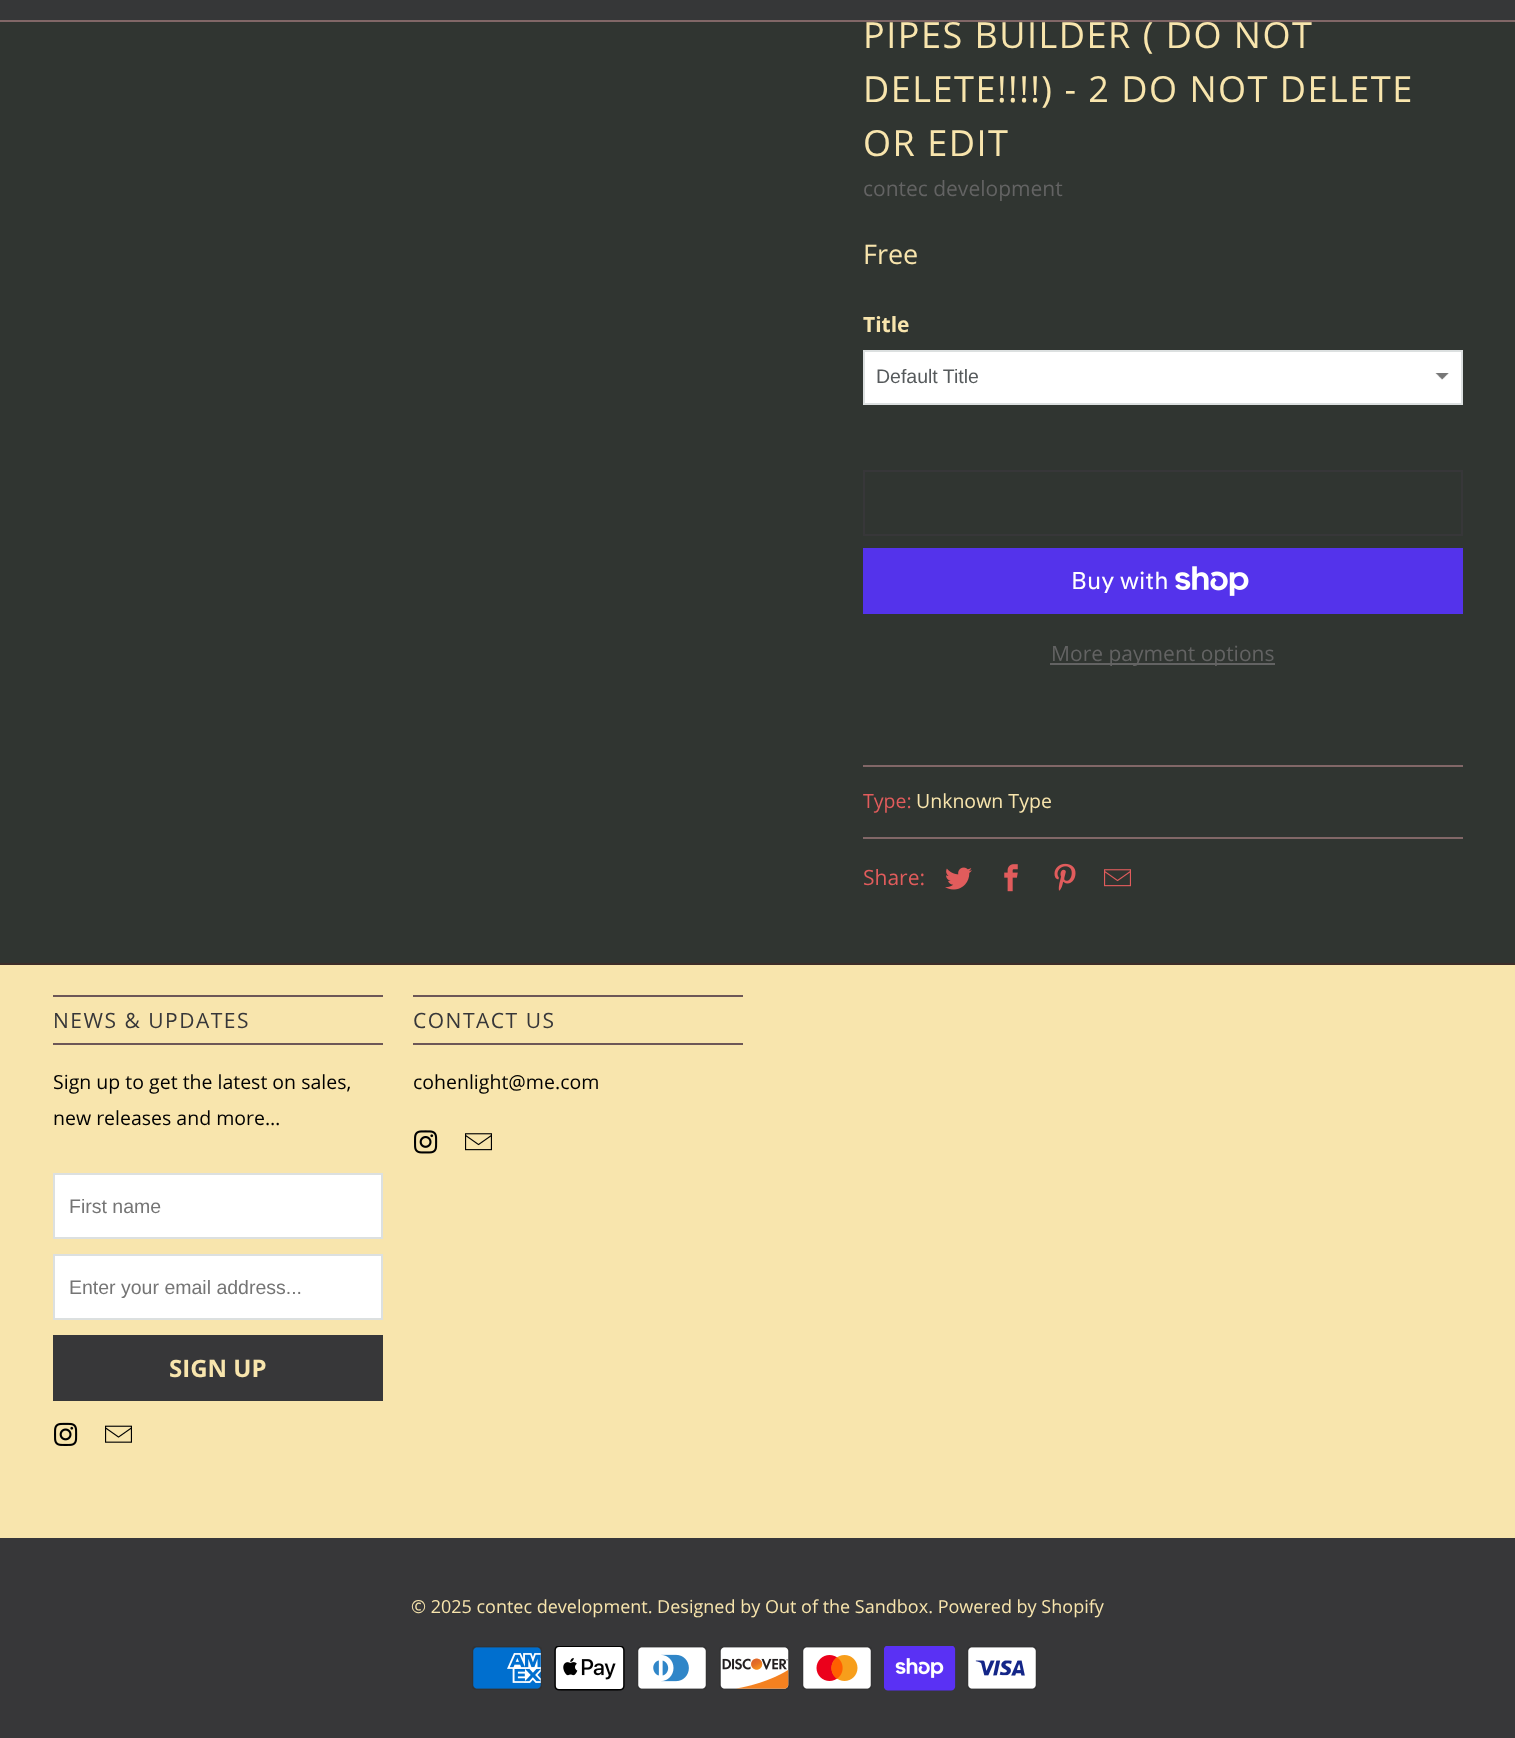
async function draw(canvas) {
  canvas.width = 1515;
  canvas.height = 1738;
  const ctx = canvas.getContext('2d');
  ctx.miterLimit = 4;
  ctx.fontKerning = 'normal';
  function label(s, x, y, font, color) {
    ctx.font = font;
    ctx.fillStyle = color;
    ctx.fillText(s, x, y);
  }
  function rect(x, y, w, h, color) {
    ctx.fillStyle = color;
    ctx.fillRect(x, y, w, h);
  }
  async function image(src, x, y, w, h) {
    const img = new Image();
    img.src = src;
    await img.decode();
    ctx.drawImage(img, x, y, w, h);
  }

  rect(0, 0, 1515, 1738, '#303531');
  rect(0, 0, 1515, 20, '#363738');
  ctx.letterSpacing = '1.5px';
  label('PIPES BUILDER ( DO NOT', 863, 48, '36px Open Sans', '#f8e5ad');
  rect(0, 20, 1515, 2, '#816767');
  label('DELETE!!!!) - 2 DO NOT DELETE', 863, 102, '36px Open Sans', '#f8e5ad');
  label('OR EDIT', 863, 156, '36px Open Sans', '#f8e5ad');
  ctx.letterSpacing = '0px';
  label('contec development', 863, 196, '21px Open Sans', '#636363');
  label('Free', 863, 264, '27px Open Sans', '#f8e5ad');
  label('Title', 863, 332, 'bold 21px Open Sans', '#f8e5ad');
  rect(865, 352, 596, 51, '#fff');
  await image('assets/img1.png', 1435, 373, 14, 7);
  ctx.strokeStyle = '#dce0e0';
  ctx.lineWidth = 2;
  ctx.strokeRect(864, 351, 598, 53);
  label('Default Title', 876, 383, '19.5px Liberation Sans', '#565a5c');
  ctx.strokeStyle = '#373739';
  ctx.strokeRect(864, 471, 598, 64);
  rect(863, 548, 600, 66, '#5433eb');
  label('Buy with', 1071, 589, '24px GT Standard', '#fff');
  await image('assets/img2.png', 1175, 566, 74, 30);
  rect(1050, 663, 225, 2, '#636363');
  label('More payment options', 1051, 661, '21px Open Sans', '#636363');
  rect(863, 765, 600, 2, '#816767');
  label('Type:', 863, 808, '19.5px Open Sans', '#e15c5c');
  label('Unknown Type', 916, 808, '19.5px Open Sans', '#f8e5ad');
  rect(863, 837, 600, 2, '#816767');
  label('Share:', 863, 885, '21px Open Sans', '#e15c5c');
  await image('assets/img3.png', 945, 867, 27, 23);
  await image('assets/img4.png', 1004, 864, 14, 28);
  await image('assets/img5.png', 1054, 863, 22, 28);
  await image('assets/img6.png', 1104, 869, 27, 18);
  rect(0, 965, 1515, 573, '#f8e5ad');
  rect(0, 963, 1515, 2, '#3e2d29');
  rect(53, 995, 330, 2, '#6d5757');
  rect(53, 1043, 330, 2, '#6d5757');
  ctx.letterSpacing = '1.5px';
  label('NEWS & UPDATES', 53, 1028, '21px Open Sans', '#373739');
  ctx.letterSpacing = '0px';
  label('Sign up to get the latest on sales,', 53, 1089, '19.5px Open Sans', '#000');
  label('new releases and more…', 53, 1125, '19.5px Open Sans', '#000');
  ctx.fillStyle = '#fff';
  ctx.beginPath();
  ctx.rect(54, 1174, 328, 64);
  ctx.fill();
  ctx.strokeStyle = '#dce0e0';
  ctx.stroke();
  label('First name', 69, 1213, '19.5px Liberation Sans', '#757575');
  ctx.fillStyle = '#fff';
  ctx.beginPath();
  ctx.rect(54, 1255, 328, 64);
  ctx.fill();
  ctx.stroke();
  label('Enter your email address...', 69, 1294, '19.5px Liberation Sans', '#757575');
  rect(53, 1335, 330, 66, '#373739');
  label('SIGN UP', 169, 1377, 'bold 24px Open Sans', '#f8e5ad');
  await image('assets/img7.png', 54, 1422, 24, 24);
  await image('assets/img8.png', 105, 1425, 27, 18);
  rect(413, 995, 330, 2, '#6d5757');
  rect(413, 1043, 330, 2, '#6d5757');
  ctx.letterSpacing = '1.5px';
  label('CONTACT US', 413, 1028, '21px Open Sans', '#373739');
  ctx.letterSpacing = '0px';
  label('cohenlight@me.com', 413, 1089, '19.5px Open Sans', '#000');
  await image('assets/img9.png', 414, 1130, 24, 24);
  await image('assets/img10.png', 465, 1133, 27, 18);
  rect(0, 1538, 1515, 200, '#373739');
  label('© 2025 contec development. Designed by Out of the Sandbox. Powered by Shopify', 411, 1613, '18px Open Sans', '#f8e5ad');
  await image('assets/img11.png', 472, 1646, 70, 44);
  await image('assets/img12.png', 554, 1646, 71, 45);
  await image('assets/img13.png', 637, 1646, 70, 44);
  await image('assets/img14.png', 719, 1646, 71, 44);
  await image('assets/img15.png', 802, 1646, 70, 44);
  await image('assets/img16.png', 884, 1646, 72, 45);
  await image('assets/img17.png', 967, 1646, 70, 44);
}

draw(document.querySelector('canvas'));
